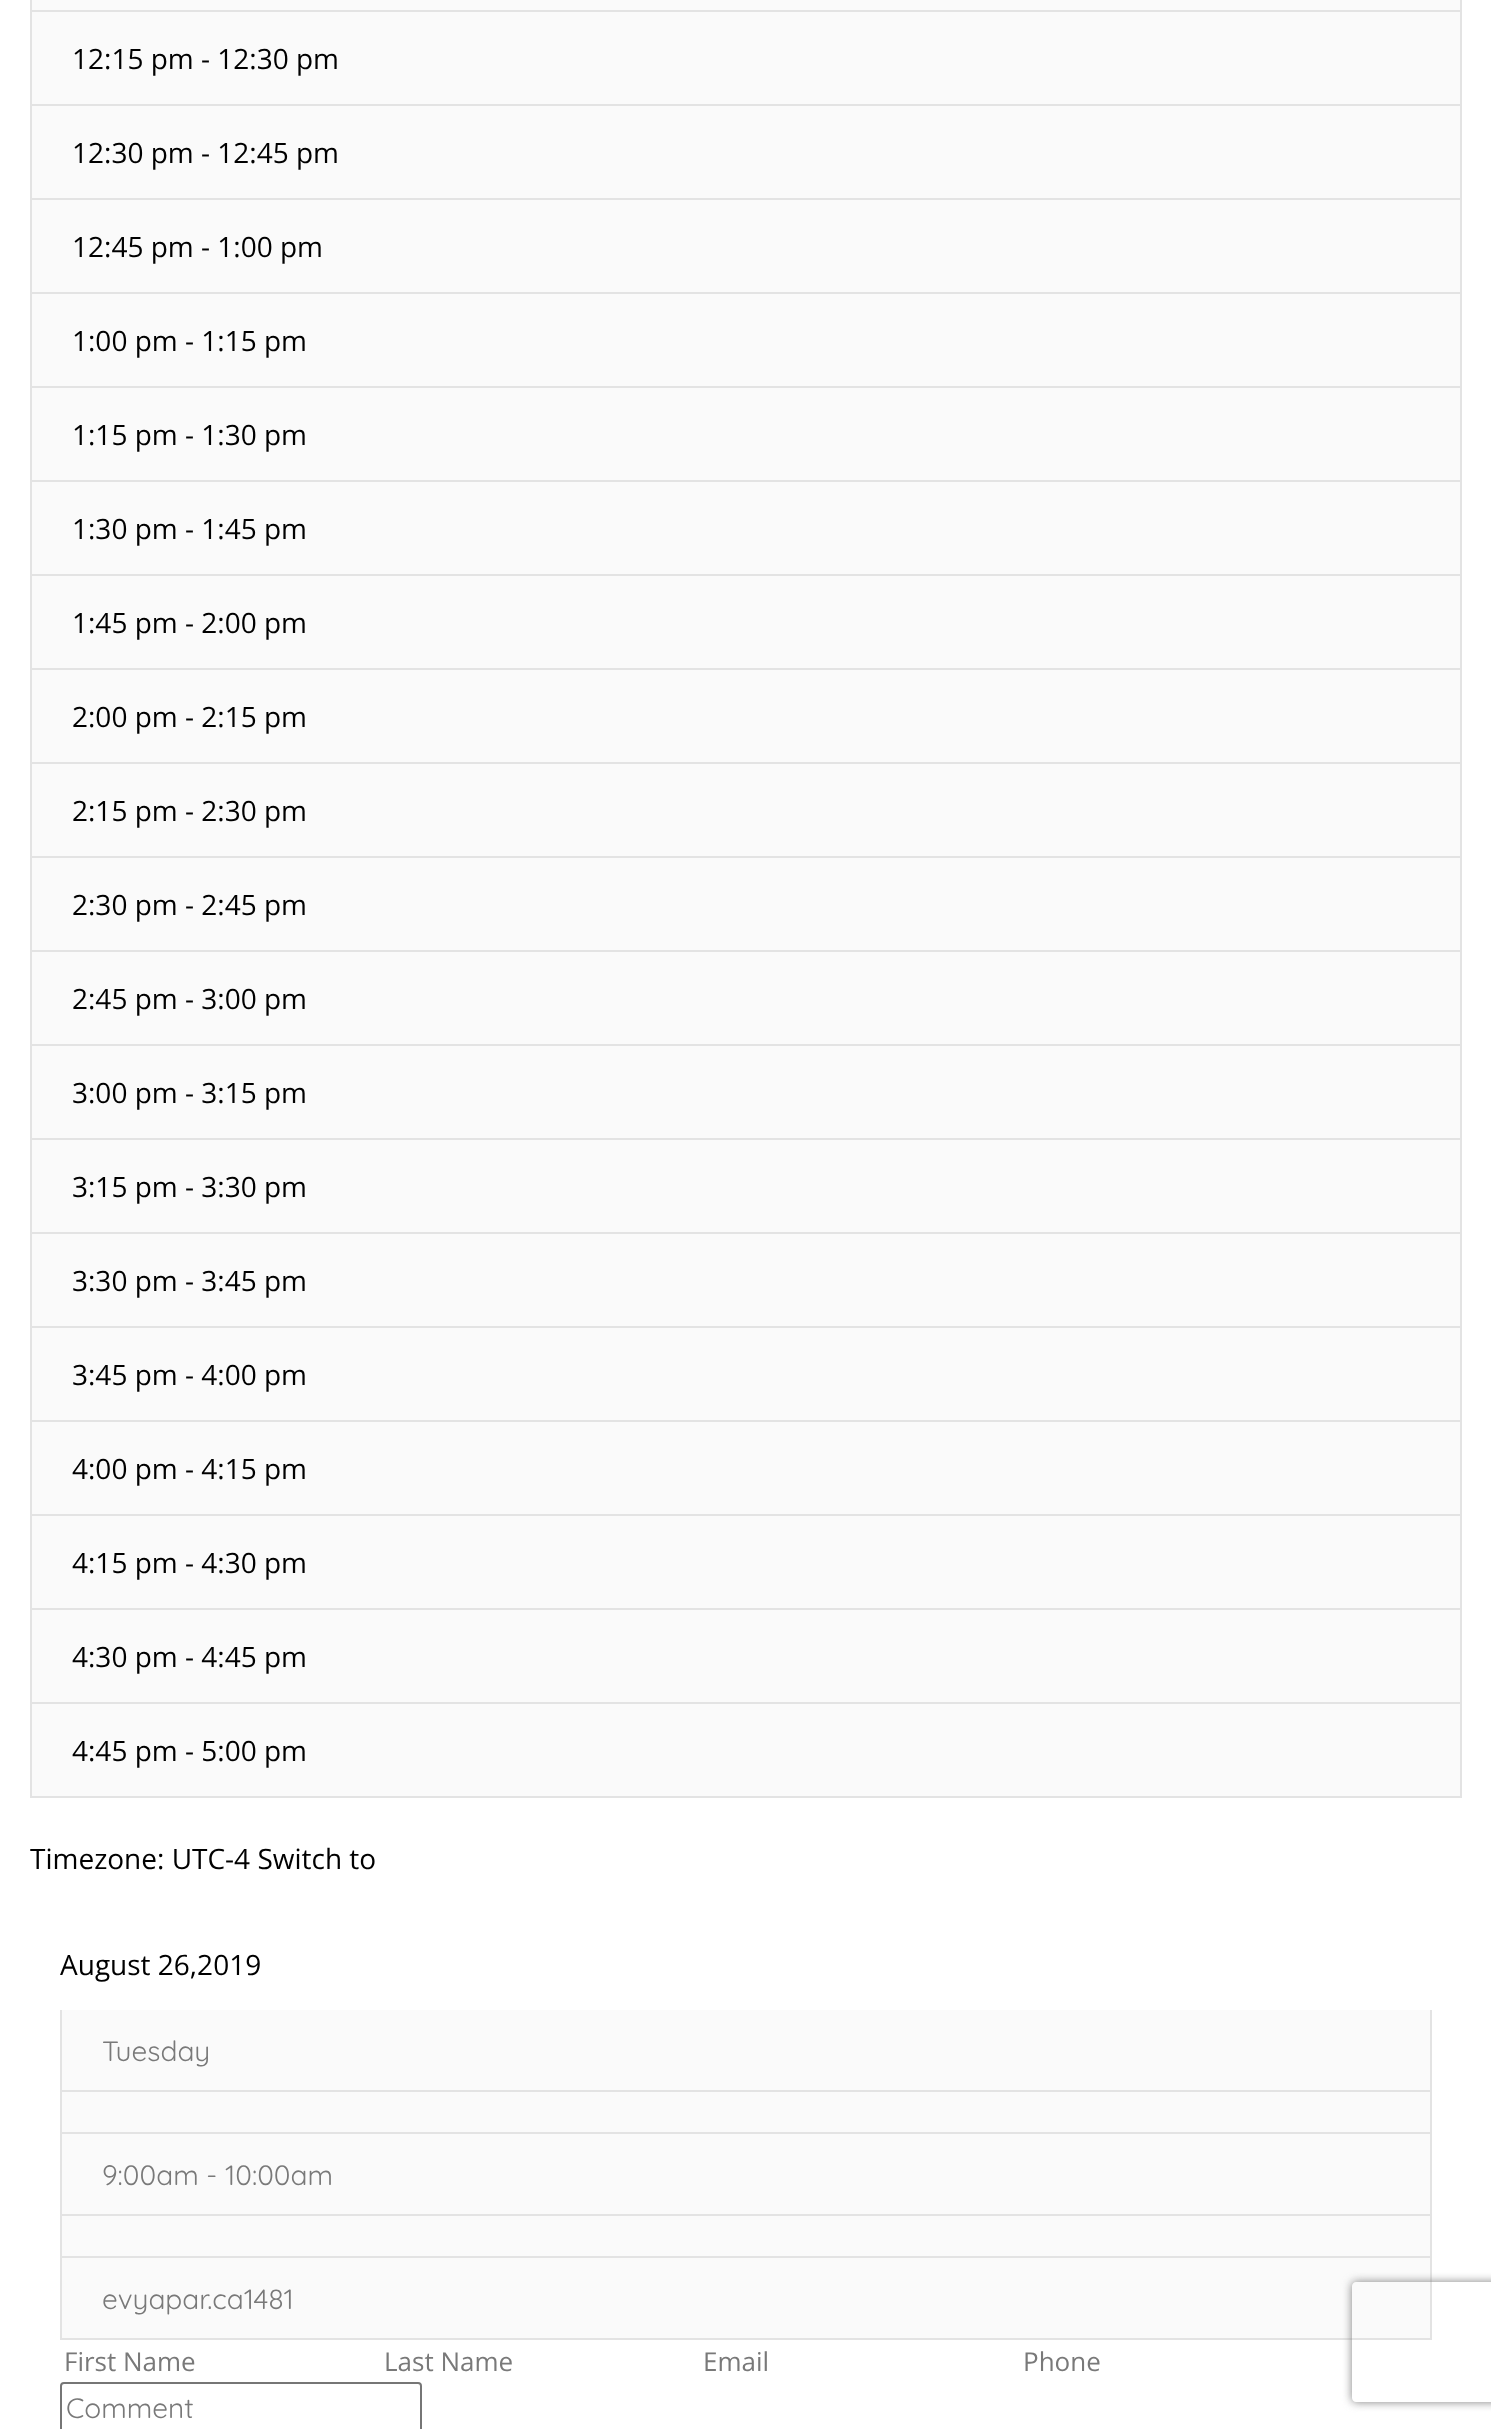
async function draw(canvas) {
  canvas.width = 1491;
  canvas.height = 2429;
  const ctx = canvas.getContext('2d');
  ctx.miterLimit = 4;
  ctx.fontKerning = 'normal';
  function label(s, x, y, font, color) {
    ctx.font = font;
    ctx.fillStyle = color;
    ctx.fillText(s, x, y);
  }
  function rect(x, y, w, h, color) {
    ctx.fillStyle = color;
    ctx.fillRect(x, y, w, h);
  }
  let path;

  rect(0, 0, 1491, 2429, '#fff');
  rect(1460, 0, 2, 1798, '#e3e3e3');
  rect(30, 1796, 1432, 2, '#e3e3e3');
  rect(30, 0, 2, 1798, '#e3e3e3');
  rect(32, 0, 1428, 10, '#fafafa');
  rect(32, 10, 1428, 2, '#e3e3e3');
  rect(32, 12, 1428, 92, '#fafafa');
  rect(32, 104, 1428, 2, '#e3e3e3');
  label('12:15 pm - 12:30 pm', 72, 69, '28px Open Sans', '#000');
  rect(32, 106, 1428, 92, '#fafafa');
  rect(32, 198, 1428, 2, '#e3e3e3');
  label('12:30 pm - 12:45 pm', 72, 163, '28px Open Sans', '#000');
  rect(32, 200, 1428, 92, '#fafafa');
  rect(32, 292, 1428, 2, '#e3e3e3');
  label('12:45 pm - 1:00 pm', 72, 257, '28px Open Sans', '#000');
  rect(32, 294, 1428, 92, '#fafafa');
  rect(32, 386, 1428, 2, '#e3e3e3');
  label('1:00 pm - 1:15 pm', 72, 351, '28px Open Sans', '#000');
  rect(32, 388, 1428, 92, '#fafafa');
  rect(32, 480, 1428, 2, '#e3e3e3');
  label('1:15 pm - 1:30 pm', 72, 445, '28px Open Sans', '#000');
  rect(32, 482, 1428, 92, '#fafafa');
  rect(32, 574, 1428, 2, '#e3e3e3');
  label('1:30 pm - 1:45 pm', 72, 539, '28px Open Sans', '#000');
  rect(32, 576, 1428, 92, '#fafafa');
  rect(32, 668, 1428, 2, '#e3e3e3');
  label('1:45 pm - 2:00 pm', 72, 633, '28px Open Sans', '#000');
  rect(32, 670, 1428, 92, '#fafafa');
  rect(32, 762, 1428, 2, '#e3e3e3');
  label('2:00 pm - 2:15 pm', 72, 727, '28px Open Sans', '#000');
  rect(32, 764, 1428, 92, '#fafafa');
  rect(32, 856, 1428, 2, '#e3e3e3');
  label('2:15 pm - 2:30 pm', 72, 821, '28px Open Sans', '#000');
  rect(32, 858, 1428, 92, '#fafafa');
  rect(32, 950, 1428, 2, '#e3e3e3');
  label('2:30 pm - 2:45 pm', 72, 915, '28px Open Sans', '#000');
  rect(32, 952, 1428, 92, '#fafafa');
  rect(32, 1044, 1428, 2, '#e3e3e3');
  label('2:45 pm - 3:00 pm', 72, 1009, '28px Open Sans', '#000');
  rect(32, 1046, 1428, 92, '#fafafa');
  rect(32, 1138, 1428, 2, '#e3e3e3');
  label('3:00 pm - 3:15 pm', 72, 1103, '28px Open Sans', '#000');
  rect(32, 1140, 1428, 92, '#fafafa');
  rect(32, 1232, 1428, 2, '#e3e3e3');
  label('3:15 pm - 3:30 pm', 72, 1197, '28px Open Sans', '#000');
  rect(32, 1234, 1428, 92, '#fafafa');
  rect(32, 1326, 1428, 2, '#e3e3e3');
  label('3:30 pm - 3:45 pm', 72, 1291, '28px Open Sans', '#000');
  rect(32, 1328, 1428, 92, '#fafafa');
  rect(32, 1420, 1428, 2, '#e3e3e3');
  label('3:45 pm - 4:00 pm', 72, 1385, '28px Open Sans', '#000');
  rect(32, 1422, 1428, 92, '#fafafa');
  rect(32, 1514, 1428, 2, '#e3e3e3');
  label('4:00 pm - 4:15 pm', 72, 1479, '28px Open Sans', '#000');
  rect(32, 1516, 1428, 92, '#fafafa');
  rect(32, 1608, 1428, 2, '#e3e3e3');
  label('4:15 pm - 4:30 pm', 72, 1573, '28px Open Sans', '#000');
  rect(32, 1610, 1428, 92, '#fafafa');
  rect(32, 1702, 1428, 2, '#e3e3e3');
  label('4:30 pm - 4:45 pm', 72, 1667, '28px Open Sans', '#000');
  rect(32, 1704, 1428, 92, '#fafafa');
  label('4:45 pm - 5:00 pm', 72, 1761, '28px Open Sans', '#000');
  label('Timezone: UTC-4 Switch to', 30, 1869, '28px Open Sans', '#000');
  label('August 26,2019', 60, 1975, '28px Open Sans', '#000');
  rect(1430, 2010, 2, 330, '#e3e3e3');
  rect(60, 2338, 1372, 2, '#e3e3e3');
  rect(60, 2010, 2, 330, '#e3e3e3');
  rect(62, 2010, 1368, 80, '#fafafa');
  rect(62, 2090, 1368, 2, '#e3e3e3');
  label('Tuesday', 102, 2061, '28px Quicksand', '#797979');
  rect(62, 2092, 1368, 40, '#fafafa');
  rect(62, 2132, 1368, 2, '#e3e3e3');
  rect(62, 2134, 1368, 80, '#fafafa');
  rect(62, 2214, 1368, 2, '#e3e3e3');
  label('9:00am - 10:00am', 102, 2185, '28px Quicksand', '#797979');
  rect(62, 2216, 1368, 40, '#fafafa');
  rect(62, 2256, 1368, 2, '#e3e3e3');
  rect(62, 2258, 1368, 80, '#fafafa');
  label('evyapar.ca1481', 102, 2309, '28px Quicksand', '#797979');
  label('First Name', 64, 2371, '26px Open Sans', '#797979');
  label('Last Name', 384, 2371, '26px Open Sans', '#797979');
  label('Email', 703, 2371, '26px Open Sans', '#797979');
  label('Phone', 1023, 2371, '26px Open Sans', '#797979');
  ctx.beginPath();
  ctx.roundRect(61, 2383, 360, 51, 3);
  ctx.strokeStyle = '#767676';
  ctx.lineWidth = 2;
  ctx.stroke();
  label('Comment', 66, 2418, '28px Quicksand', '#797979');
  ctx.save();
  path = new Path2D('M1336 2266H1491V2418H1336ZM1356 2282H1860C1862 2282 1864 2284 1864 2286V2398C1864 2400 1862 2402 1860 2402H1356C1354 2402 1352 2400 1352 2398V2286C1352 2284 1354 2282 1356 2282Z');
  ctx.clip(path, 'evenodd');
  ctx.fillStyle = '#808080';
  ctx.filter = 'blur(5px)';
  ctx.beginPath();
  ctx.roundRect(1352, 2282, 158, 120, 4);
  ctx.fill();
  ctx.filter = 'none';
  ctx.restore();
}

draw(document.querySelector('canvas'));
